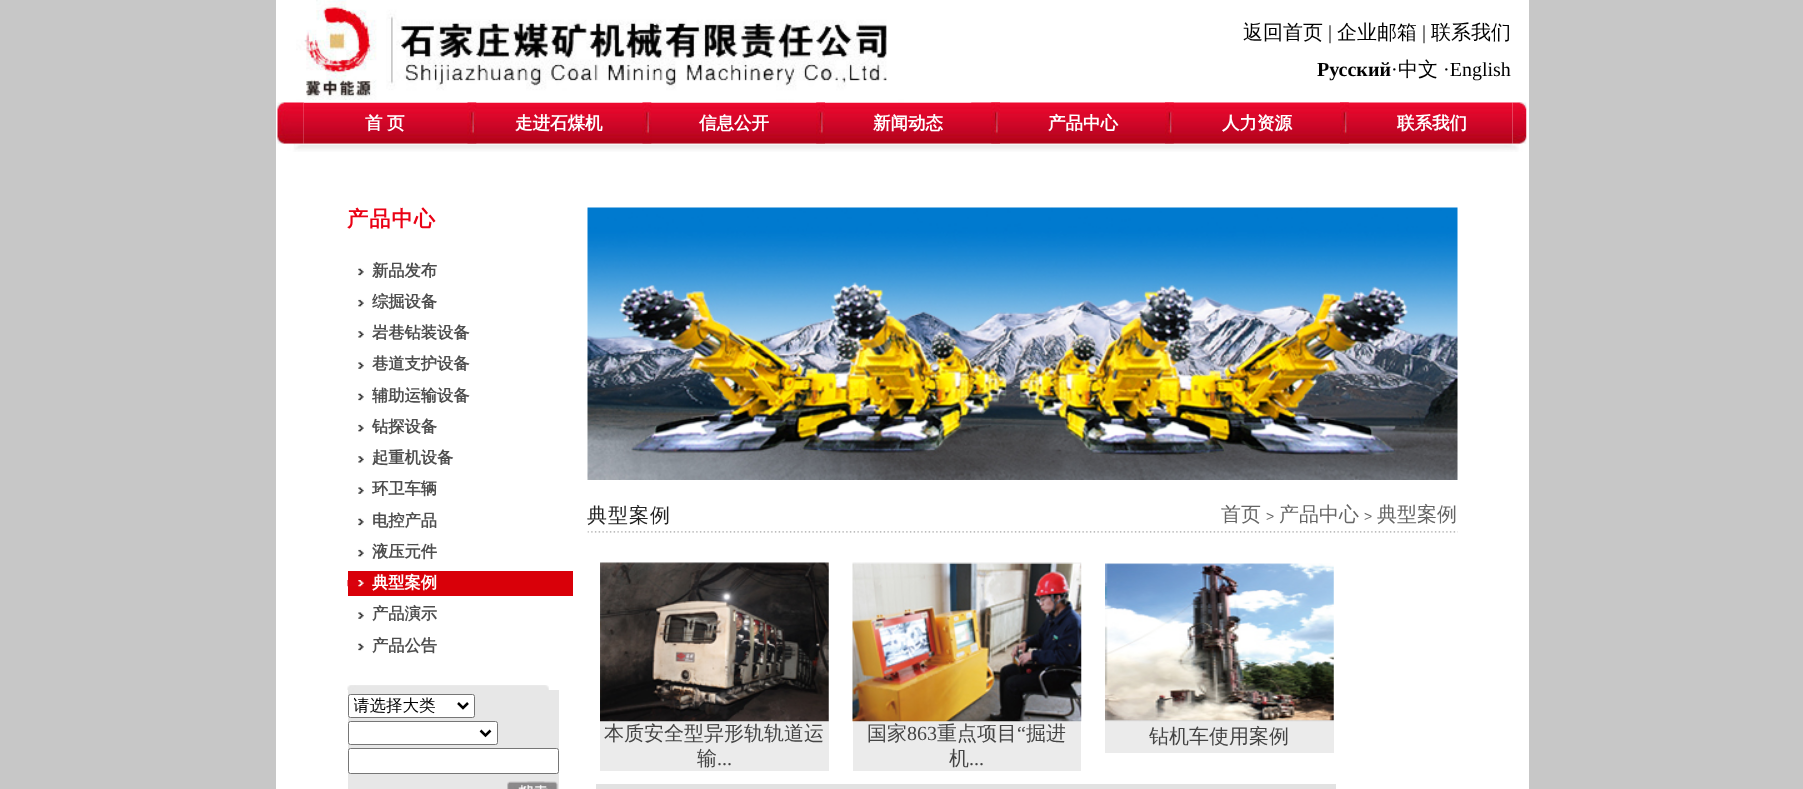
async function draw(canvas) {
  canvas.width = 1803;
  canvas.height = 789;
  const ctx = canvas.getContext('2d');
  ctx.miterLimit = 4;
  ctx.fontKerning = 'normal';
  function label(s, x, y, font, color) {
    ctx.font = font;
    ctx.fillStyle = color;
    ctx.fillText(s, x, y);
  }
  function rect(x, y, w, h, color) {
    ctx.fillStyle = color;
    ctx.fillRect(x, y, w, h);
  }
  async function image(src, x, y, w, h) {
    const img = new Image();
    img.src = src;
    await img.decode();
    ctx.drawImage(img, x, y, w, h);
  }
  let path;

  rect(0, 0, 1803, 789, '#c7c7c7');
  rect(276, 0, 1253, 789, '#fff');
  await image('assets/img3.png', 303, 102, 1210, 42);
  await image('assets/img1.png', 296, 0, 676, 103);
  label('返回首页', 1243, 39, '500 20px WenQuanYi Zen Hei', '#000');
  label('|', 1328, 39, '20px Liberation Serif', '#000');
  label('企业邮箱', 1337, 39, '500 20px WenQuanYi Zen Hei', '#000');
  label('|', 1422, 39, '20px Liberation Serif', '#000');
  label('联系我们', 1431, 39, '500 20px WenQuanYi Zen Hei', '#000');
  label('Русский', 1317, 76, 'bold 20px Liberation Serif', '#000');
  label('·', 1391, 76, '20px Liberation Serif', '#000');
  label('中文', 1398, 76, '500 20px WenQuanYi Zen Hei', '#000');
  label('·English', 1443, 76, '20px Liberation Serif', '#000');
  await image('assets/img2.png', 277, 102, 27, 42);
  label('首', 365, 129, 'bold 17.5px WenQuanYi Zen Hei', '#fff');
  label('页', 387, 129, 'bold 17.5px WenQuanYi Zen Hei', '#fff');
  await image('assets/img4.png', 467, 102, 10, 42);
  label('走进石煤机', 515, 129, 'bold 17.5px WenQuanYi Zen Hei', '#fff');
  await image('assets/img5.png', 642, 102, 10, 42);
  label('信息公开', 699, 129, 'bold 17.5px WenQuanYi Zen Hei', '#fff');
  await image('assets/img6.png', 816, 102, 9, 42);
  label('新闻动态', 873, 129, 'bold 17.5px WenQuanYi Zen Hei', '#fff');
  await image('assets/img7.png', 991, 102, 9, 42);
  label('产品中心', 1048, 129, 'bold 17.5px WenQuanYi Zen Hei', '#fff');
  await image('assets/img8.png', 1165, 102, 9, 42);
  label('人力资源', 1222, 129, 'bold 17.5px WenQuanYi Zen Hei', '#fff');
  await image('assets/img9.png', 1340, 102, 9, 42);
  label('联系我们', 1397, 129, 'bold 17.5px WenQuanYi Zen Hei', '#fff');
  await image('assets/img10.png', 1512, 102, 15, 42);
  await image('assets/img11.png', 281, 143, 1242, 9);
  ctx.letterSpacing = '1px';
  label('产品中心', 347, 226, 'bold 21.25px WenQuanYi Zen Hei', '#ea0114');
  await image('assets/img12.png', 358, 268, 6, 8);
  ctx.letterSpacing = '0px';
  label('新品发布', 372, 276, 'bold 16.25px WenQuanYi Zen Hei', '#4e4e4e');
  await image('assets/img13.png', 358, 299, 6, 8);
  label('综掘设备', 372, 307, 'bold 16.25px WenQuanYi Zen Hei', '#4e4e4e');
  await image('assets/img14.png', 358, 331, 6, 7);
  label('岩巷钻装设备', 372, 338, 'bold 16.25px WenQuanYi Zen Hei', '#4e4e4e');
  await image('assets/img15.png', 358, 362, 6, 7);
  label('巷道支护设备', 372, 369, 'bold 16.25px WenQuanYi Zen Hei', '#4e4e4e');
  await image('assets/img12.png', 358, 393, 6, 8);
  label('辅助运输设备', 372, 401, 'bold 16.25px WenQuanYi Zen Hei', '#4e4e4e');
  await image('assets/img13.png', 358, 424, 6, 8);
  label('钻探设备', 372, 432, 'bold 16.25px WenQuanYi Zen Hei', '#4e4e4e');
  await image('assets/img14.png', 358, 456, 6, 7);
  label('起重机设备', 372, 463, 'bold 16.25px WenQuanYi Zen Hei', '#4e4e4e');
  await image('assets/img15.png', 358, 487, 6, 7);
  label('环卫车辆', 372, 494, 'bold 16.25px WenQuanYi Zen Hei', '#4e4e4e');
  await image('assets/img12.png', 358, 518, 6, 8);
  label('电控产品', 372, 526, 'bold 16.25px WenQuanYi Zen Hei', '#4e4e4e');
  await image('assets/img13.png', 358, 549, 6, 8);
  label('液压元件', 372, 557, 'bold 16.25px WenQuanYi Zen Hei', '#4e4e4e');
  rect(348, 571, 225, 25, '#d90009');
  await image('assets/img16.png', 347, 580, 18, 7);
  label('典型案例', 372, 588, 'bold 16.25px WenQuanYi Zen Hei', '#fff');
  await image('assets/img15.png', 358, 612, 6, 7);
  label('产品演示', 372, 619, 'bold 16.25px WenQuanYi Zen Hei', '#4e4e4e');
  await image('assets/img12.png', 358, 643, 6, 8);
  label('产品公告', 372, 651, 'bold 16.25px WenQuanYi Zen Hei', '#4e4e4e');
  await image('assets/img17.png', 347, 685, 202, 5);
  rect(348, 690, 211, 99, '#e7e7e7');
  ctx.fillStyle = '#fff';
  ctx.beginPath();
  ctx.roundRect(348.5, 694.5, 126, 23, 2);
  ctx.fill();
  ctx.strokeStyle = '#767676';
  ctx.stroke();
  path = new Path2D('M458 703L463 708L468 703');
  ctx.strokeStyle = '#000';
  ctx.lineWidth = 2.5;
  ctx.stroke(path);
  ctx.save();
  ctx.beginPath();
  ctx.rect(354, 695, 100, 21);
  ctx.clip();
  label('请选择大类', 353, 711, '500 16.5px WenQuanYi Zen Hei', '#000');
  ctx.restore();
  ctx.beginPath();
  ctx.roundRect(348.5, 721.5, 149, 23, 2);
  ctx.fill();
  ctx.strokeStyle = '#767676';
  ctx.lineWidth = 1;
  ctx.stroke();
  path = new Path2D('M480.5 730.5L485.5 735.5L490.5 730.5');
  ctx.strokeStyle = '#000';
  ctx.lineWidth = 2.5;
  ctx.stroke(path);
  ctx.beginPath();
  ctx.roundRect(348.5, 748.5, 210, 25, 2);
  ctx.fill();
  ctx.strokeStyle = '#767676';
  ctx.lineWidth = 1;
  ctx.stroke();
  await image('assets/img18.png', 507, 781, 51, 8);
  await image('assets/img19.png', 587, 207, 871, 273);
  ctx.letterSpacing = '1px';
  label('典型案例', 587, 522, '500 20px WenQuanYi Zen Hei', '#242424');
  ctx.letterSpacing = '0px';
  label('首页', 1221, 521, '500 20px WenQuanYi Zen Hei', '#656565');
  label('>', 1266, 521, '14px Liberation Sans', '#656565');
  label('产品中心', 1279, 521, '500 20px WenQuanYi Zen Hei', '#656565');
  label('>', 1364, 521, '14px Liberation Sans', '#656565');
  label('典型案例', 1377, 521, '500 20px WenQuanYi Zen Hei', '#656565');
  await image('assets/img20.png', 587, 531, 871, 2);
  rect(600, 721, 229, 50, '#ebebeb');
  await image('assets/img21.png', 600, 562, 229, 160);
  label('本质安全型异形轨轨道运', 604, 740, '500 20px WenQuanYi Zen Hei', '#444');
  label('输', 697, 765, '500 20px WenQuanYi Zen Hei', '#444');
  label('...', 717, 765, '20px Liberation Serif', '#444');
  rect(853, 721, 228, 50, '#ebebeb');
  await image('assets/img22.png', 852, 562, 230, 160);
  label('国家', 867, 740, '500 20px WenQuanYi Zen Hei', '#444');
  label('863', 907, 740, '20px Liberation Serif', '#444');
  label('重点项目', 937, 740, '500 20px WenQuanYi Zen Hei', '#444');
  label('“', 1017, 740, '20px Liberation Serif', '#444');
  label('掘进', 1026, 740, '500 20px WenQuanYi Zen Hei', '#444');
  label('机', 949, 765, '500 20px WenQuanYi Zen Hei', '#444');
  label('...', 969, 765, '20px Liberation Serif', '#444');
  rect(1105, 721, 229, 32, '#ebebeb');
  await image('assets/img23.png', 1105, 563, 229, 159);
  label('钻机车使用案例', 1149, 743, '500 20px WenQuanYi Zen Hei', '#444');
  rect(596, 784, 740, 5, '#e2e2e2');
}

draw(document.querySelector('canvas'));
